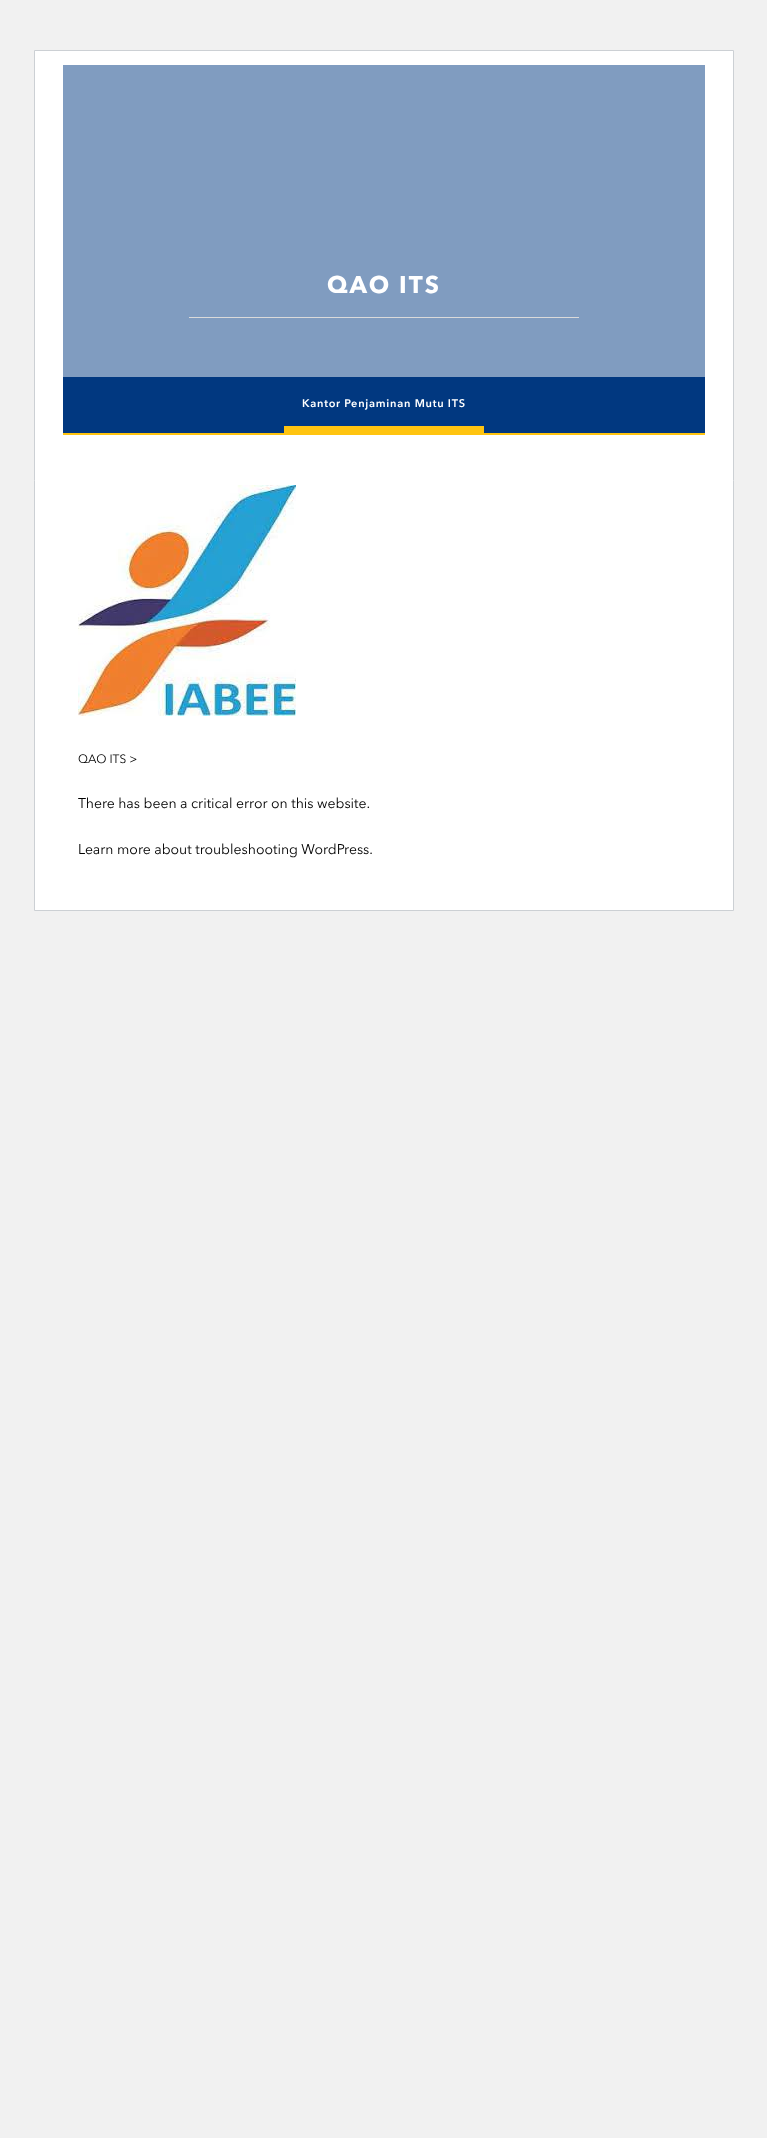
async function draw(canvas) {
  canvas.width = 767;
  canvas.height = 2138;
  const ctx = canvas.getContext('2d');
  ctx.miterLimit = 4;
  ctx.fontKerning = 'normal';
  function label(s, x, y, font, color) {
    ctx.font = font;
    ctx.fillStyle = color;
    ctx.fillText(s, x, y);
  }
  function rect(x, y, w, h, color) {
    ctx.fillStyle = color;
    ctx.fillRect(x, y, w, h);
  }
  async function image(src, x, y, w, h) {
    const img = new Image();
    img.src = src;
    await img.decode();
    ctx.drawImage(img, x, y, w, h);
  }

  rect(0, 0, 767, 2138, '#f1f1f1');
  ctx.fillStyle = '#fff';
  ctx.beginPath();
  ctx.rect(34.5, 50.5, 699, 860);
  ctx.fill();
  ctx.strokeStyle = '#ccd0d4';
  ctx.stroke();
  rect(63, 65, 642, 312, '#809cc0');
  rect(189, 317, 390, 1, '#dadada');
  ctx.letterSpacing = '2px';
  label('QAO ITS', 327, 293, 'bold 24px Avenir Next', '#fff');
  rect(63, 377, 642, 56, '#013880');
  rect(63, 433, 642, 2, '#ffc410');
  ctx.letterSpacing = '0.75px';
  label('Kantor Penjaminan Mutu ITS', 302, 407, '600 11px Avenir Next', '#fff');
  rect(284, 426, 200, 7, '#ffc410');
  await image('assets/img1.png', 78, 485, 218, 231);
  ctx.letterSpacing = '0px';
  label('QAO ITS >', 78, 763, '12px Avenir Next', '#000');
  label('There has been a critical error on this website.', 78, 808, '14px Avenir Next', '#000');
  label('Learn more about troubleshooting WordPress.', 78, 854, '14px Avenir Next', '#000');
}

draw(document.querySelector('canvas'));
